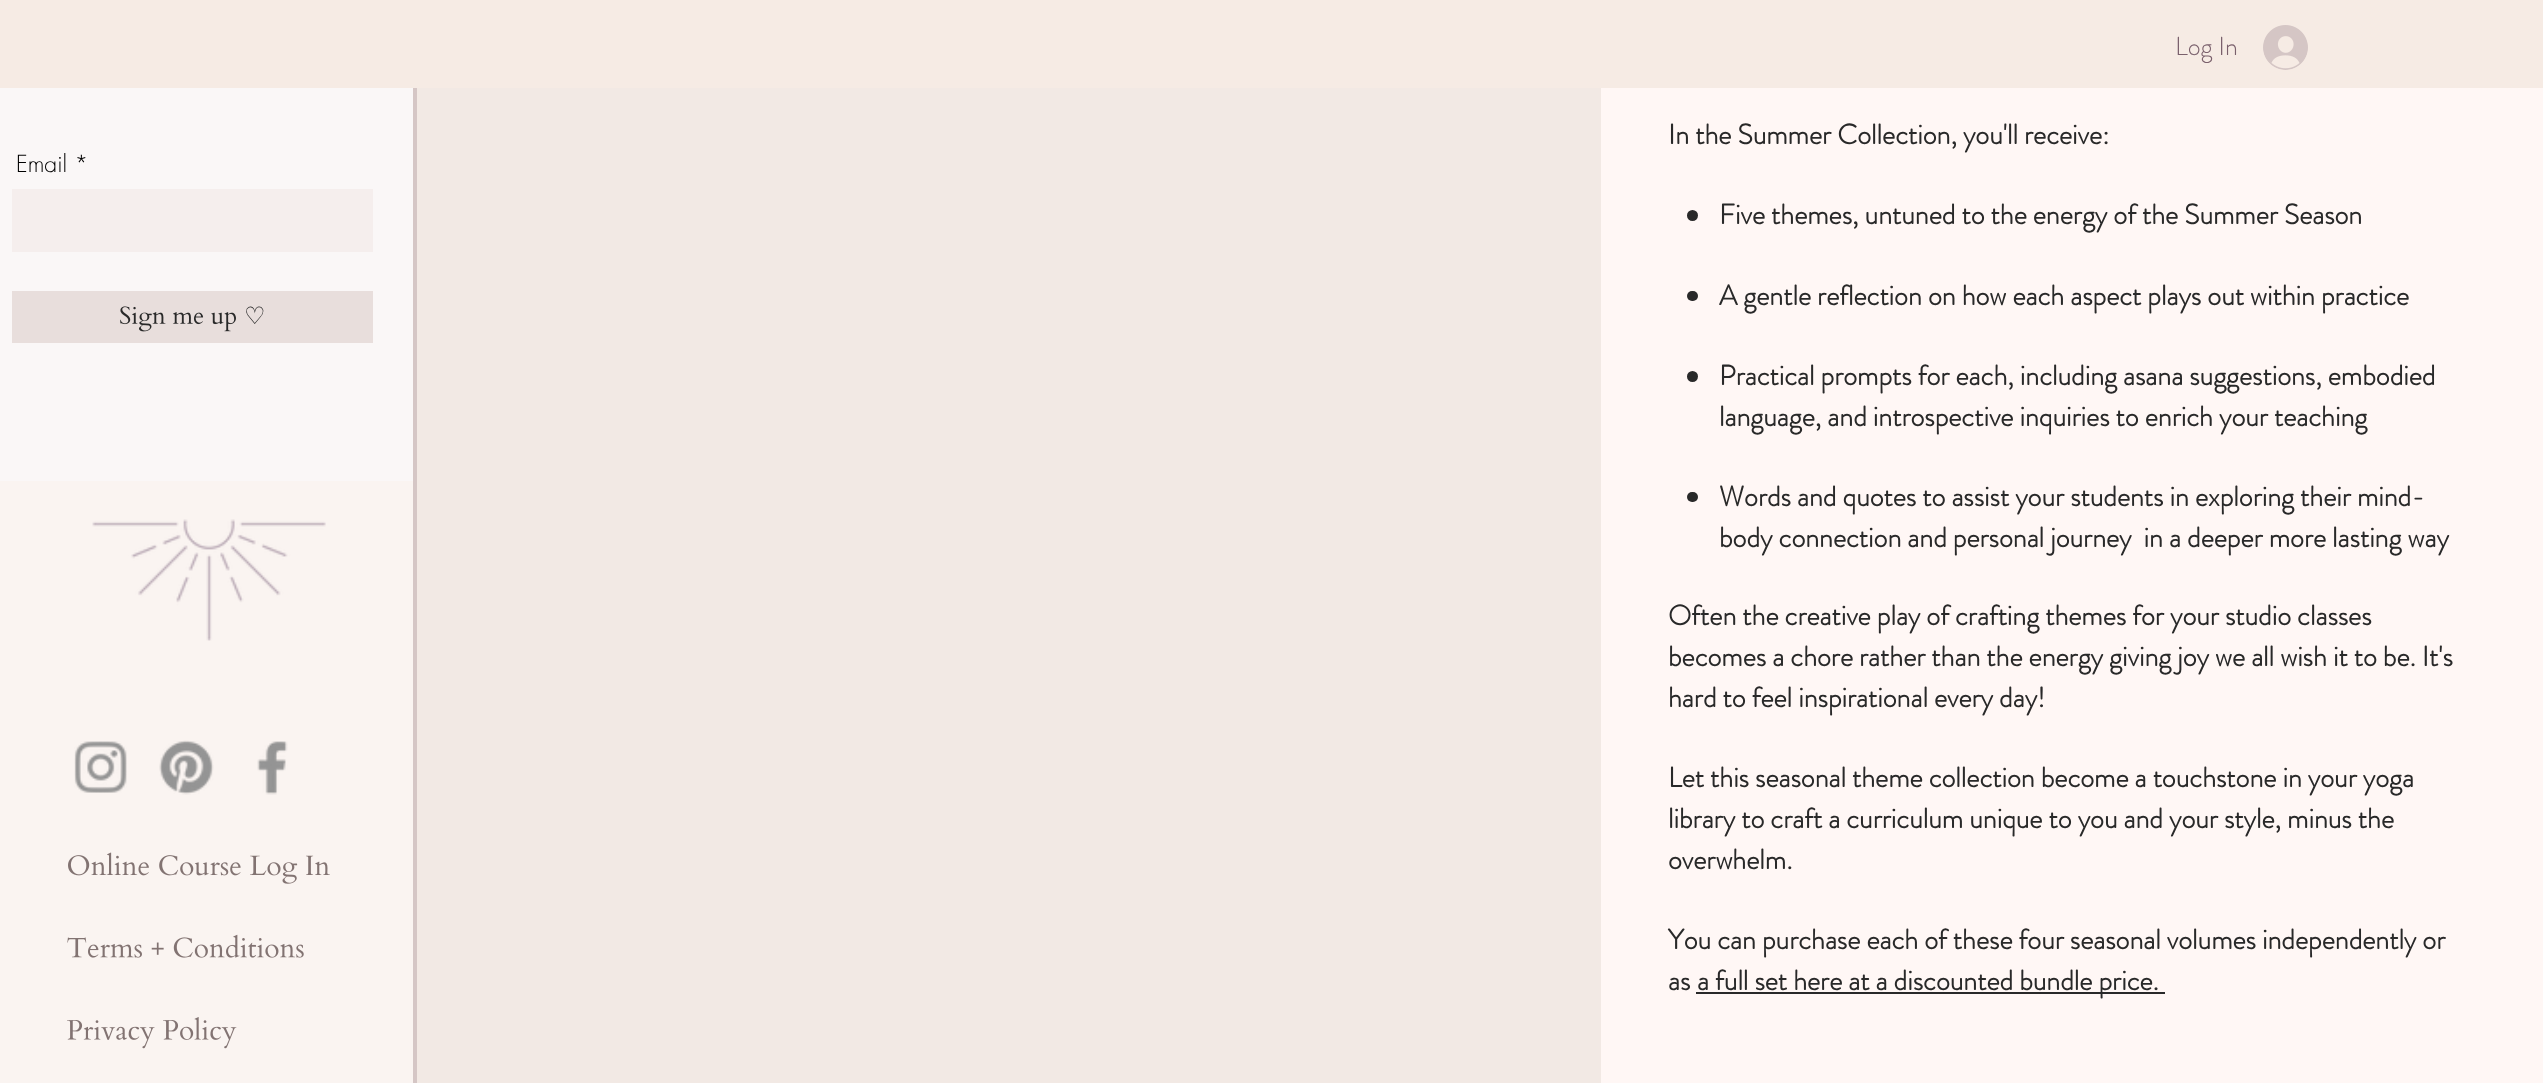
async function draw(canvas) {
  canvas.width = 2543;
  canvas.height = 1083;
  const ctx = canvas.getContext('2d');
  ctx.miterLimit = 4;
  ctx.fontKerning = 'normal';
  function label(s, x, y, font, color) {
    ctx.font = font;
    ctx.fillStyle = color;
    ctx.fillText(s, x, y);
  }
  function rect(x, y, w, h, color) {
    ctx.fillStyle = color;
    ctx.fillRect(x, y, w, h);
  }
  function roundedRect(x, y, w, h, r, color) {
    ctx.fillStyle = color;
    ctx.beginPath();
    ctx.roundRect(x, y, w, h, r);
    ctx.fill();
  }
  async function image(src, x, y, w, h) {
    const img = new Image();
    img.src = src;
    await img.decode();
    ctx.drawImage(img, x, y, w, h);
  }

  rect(0, 0, 2543, 1083, '#f2e9e4');
  rect(0, 481, 413, 602, '#faf4f1');
  ctx.strokeStyle = '#d5c6c5';
  ctx.lineWidth = 4;
  ctx.strokeRect(-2, -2, 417, 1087);
  rect(0, 0, 2543, 88, '#f6ebe4');
  label('Log In', 2175, 55, '300 26px "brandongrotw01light"', '#7a606c');
  await image('assets/img1.png', 2263, 25, 45, 45);
  rect(0, 88, 413, 393, '#faf7f7');
  label('Email *', 16, 172, '300 23px futura', '#000');
  rect(12, 189, 361, 63, '#f5eeed');
  rect(12, 291, 361, 52, '#e8dedc');
  await image('assets/img2.png', 120, 306, 116, 26);
  label('♡', 244, 324, '24px DejaVu Sans', '#292929');
  await image('assets/img3.png', 92, 519, 234, 122);
  await image('assets/img4.png', 74, 741, 53, 52);
  await image('assets/img5.png', 159, 740, 55, 55);
  await image('assets/img6.png', 257, 741, 31, 54);
  await image('assets/img7.png', 68, 852, 262, 32);
  await image('assets/img8.png', 67, 934, 237, 24);
  await image('assets/img9.png', 67, 1017, 170, 32);
  rect(1601, 88, 942, 995, '#fff7f5');
  label('In the Summer Collection, you\'ll receive:', 1668, 144, 'bold 28px "brandongrotw01light"', '#292929');
  ctx.beginPath();
  ctx.arc(1692.5, 215.5, 5.5, 0, 2 * Math.PI);
  ctx.fill();
  label('Five themes, untuned to the energy of the Summer Season', 1719, 224, 'bold 28px "brandongrotw01light"', '#292929');
  roundedRect(1687, 291, 11, 10, 5, '#292929');
  label('A gentle reflection on how each aspect plays out within practice', 1719, 305, 'bold 28px "brandongrotw01light"', '#292929');
  ctx.beginPath();
  ctx.arc(1692.5, 376.5, 5.5, 0, 2 * Math.PI);
  ctx.fill();
  label('Practical prompts for each, including asana suggestions, embodied', 1719, 385, 'bold 28px "brandongrotw01light"', '#292929');
  label('language, and introspective inquiries to enrich your teaching', 1719, 426, 'bold 28px "brandongrotw01light"', '#292929');
  roundedRect(1687, 492, 11, 10, 5, '#292929');
  label('Words and quotes to assist your students in exploring their mind-', 1719, 506, 'bold 28px "brandongrotw01light"', '#292929');
  label('body connection and personal journey  in a deeper more lasting way', 1719, 547, 'bold 28px "brandongrotw01light"', '#292929');
  label('Often the creative play of crafting themes for your studio classes', 1668, 625, 'bold 28px "brandongrotw01light"', '#292929');
  label('becomes a chore rather than the energy giving joy we all wish it to be. It\'s', 1668, 666, 'bold 28px "brandongrotw01light"', '#292929');
  label('hard to feel inspirational every day!', 1668, 707, 'bold 28px "brandongrotw01light"', '#292929');
  label('Let this seasonal theme collection become a touchstone in your yoga', 1668, 787, 'bold 28px "brandongrotw01light"', '#292929');
  label('library to craft a curriculum unique to you and your style, minus the', 1668, 828, 'bold 28px "brandongrotw01light"', '#292929');
  label('overwhelm.', 1668, 869, 'bold 28px "brandongrotw01light"', '#292929');
  label('You can purchase each of these four seasonal volumes independently or', 1668, 949, 'bold 28px "brandongrotw01light"', '#292929');
  label('as', 1668, 990, 'bold 28px "brandongrotw01light"', '#292929');
  rect(1696, 992, 469, 2, '#292929');
  label('a full set here at a discounted bundle price.', 1697, 990, 'bold 28px "brandongrotw01light"', '#292929');
}

draw(document.querySelector('canvas'));
